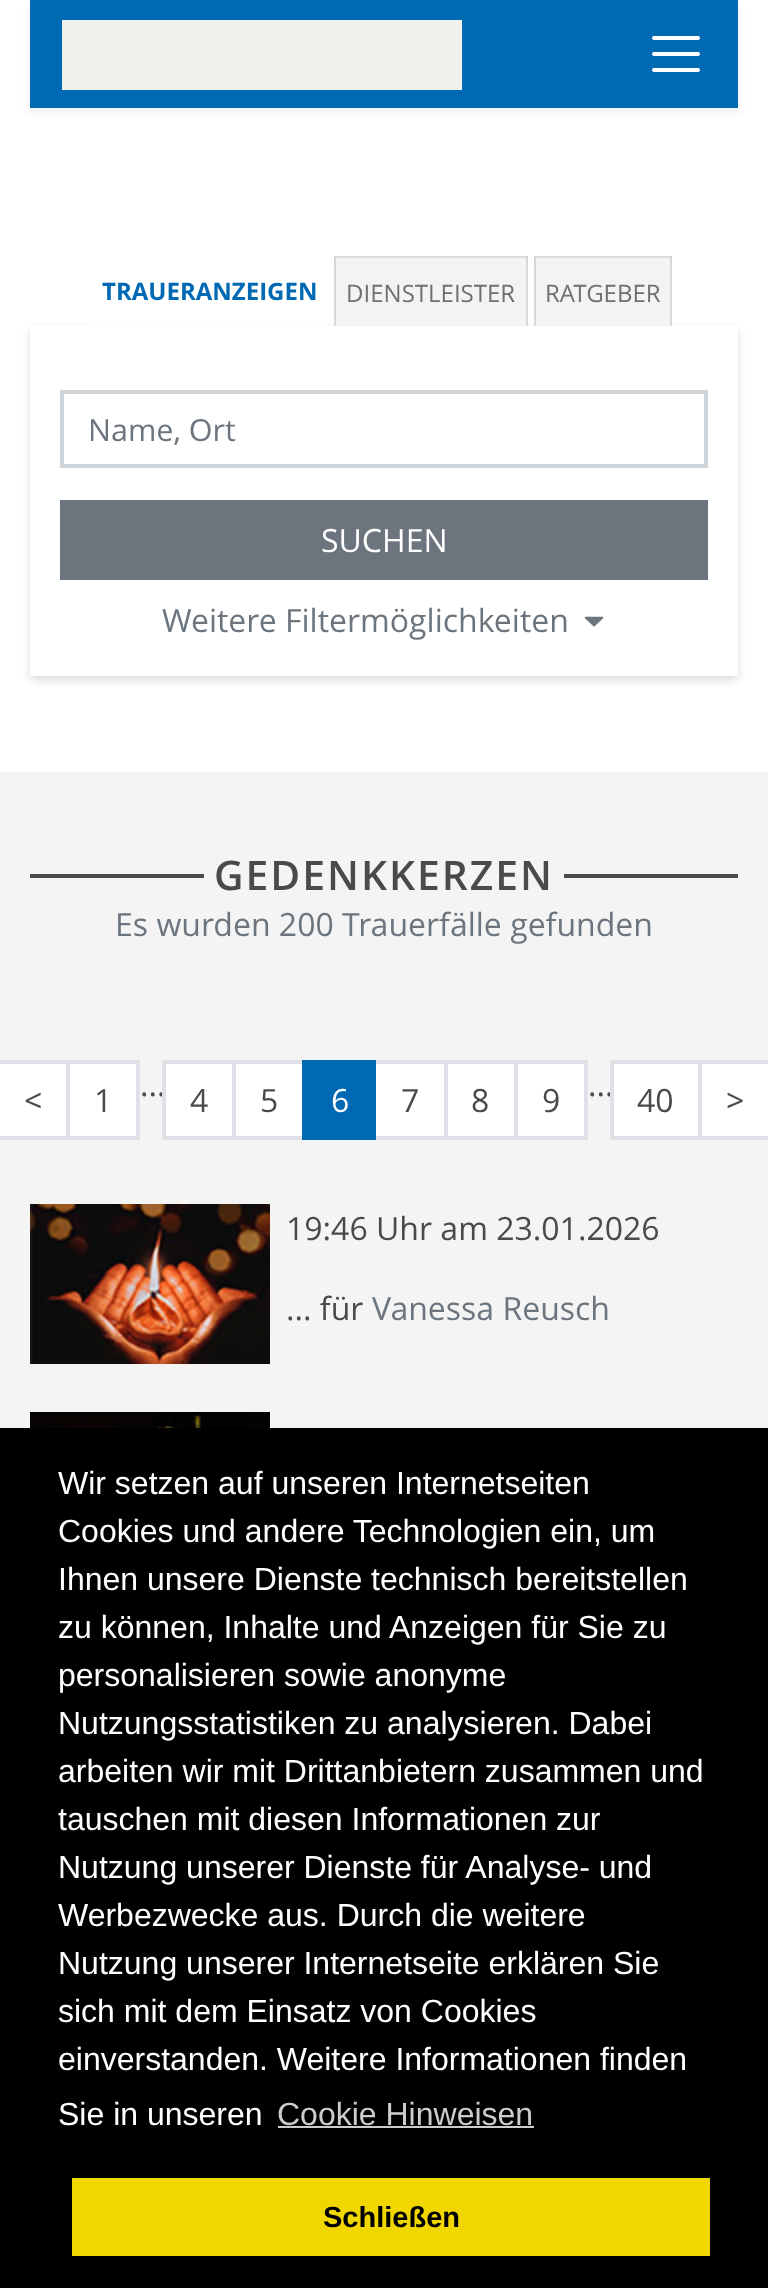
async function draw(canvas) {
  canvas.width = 768;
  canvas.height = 2288;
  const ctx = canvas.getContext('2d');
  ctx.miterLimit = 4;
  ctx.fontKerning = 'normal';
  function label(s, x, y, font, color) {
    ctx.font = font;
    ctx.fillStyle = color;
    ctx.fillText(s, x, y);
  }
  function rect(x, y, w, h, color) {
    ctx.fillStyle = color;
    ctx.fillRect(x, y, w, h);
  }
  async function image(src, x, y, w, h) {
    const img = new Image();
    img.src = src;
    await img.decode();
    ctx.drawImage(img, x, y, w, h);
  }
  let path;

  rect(0, 0, 768, 2288, '#fff');
  ctx.fillStyle = '#00000012';
  ctx.filter = 'blur(4px)';
  ctx.beginPath();
  ctx.rect(30, 4, 708, 108);
  ctx.fill();
  ctx.filter = 'none';
  rect(30, 0, 708, 108, '#0069b4');
  rect(62, 20, 400, 70, '#f1f0ec');
  path = new Path2D('M654 38H698M654 54H698M654 70H698');
  ctx.strokeStyle = '#fff';
  ctx.lineWidth = 4;
  ctx.lineCap = 'round';
  ctx.stroke(path);
  ctx.save();
  path = new Path2D('M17 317H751V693H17ZM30 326H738V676H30Z');
  ctx.clip(path, 'evenodd');
  ctx.fillStyle = '#00000012';
  ctx.filter = 'blur(4px)';
  ctx.beginPath();
  ctx.rect(30, 330, 708, 350);
  ctx.fill();
  ctx.filter = 'none';
  ctx.filter = 'blur(4px)';
  ctx.beginPath();
  ctx.rect(30, 330, 708, 350);
  ctx.fill();
  ctx.filter = 'none';
  ctx.restore();
  rect(90, 324, 238, 2, '#fff');
  label('TRAUERANZEIGEN', 102, 300, 'bold 24px Open Sans', '#0069b4');
  rect(334, 258, 194, 68, '#eeeeeeb3');
  rect(334, 256, 194, 2, '#dbdbdb');
  rect(526, 256, 2, 70, '#ccccccb3');
  rect(334, 256, 2, 70, '#ccccccb3');
  label('DIENSTLEISTER', 346, 302, '24px Open Sans', '#707070');
  rect(534, 258, 138, 68, '#eeeeeeb3');
  rect(534, 256, 138, 2, '#dbdbdb');
  rect(670, 256, 2, 70, '#ccccccb3');
  rect(534, 256, 2, 70, '#ccccccb3');
  label('RATGEBER', 545, 302, '24px Open Sans', '#707070');
  ctx.strokeStyle = '#ced4da';
  ctx.strokeRect(62, 392, 644, 74);
  label('Name, Ort', 88, 441, '30.5px Open Sans', '#6c757d');
  rect(60, 500, 648, 80, '#6c757d');
  label('SUCHEN', 321, 552, '32px Open Sans', '#fff');
  label('Weitere Filtermöglichkeiten', 162, 632, '32px Open Sans', '#6c757d');
  await image('assets/img1.png', 584, 616, 20, 11);
  rect(0, 772, 768, 656, '#f4f4f4');
  rect(30, 874, 174, 4, '#4a4a49');
  ctx.letterSpacing = '2px';
  label('GEDENKKERZEN', 214, 890, '600 40.75px Open Sans', '#4a4a49');
  rect(564, 874, 174, 4, '#4a4a49');
  ctx.letterSpacing = '0px';
  label('Es wurden 200 Trauerfälle gefunden', 115, 936, '32px Open Sans', '#6c757d');
  ctx.fillStyle = '#fff';
  ctx.beginPath();
  ctx.rect(-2, 1062, 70, 76);
  ctx.fill();
  ctx.strokeStyle = '#dee2e6';
  ctx.stroke();
  label('<', 24, 1112, '32px Open Sans', '#4a4a49');
  ctx.fillStyle = '#fff';
  ctx.beginPath();
  ctx.rect(68, 1062, 70, 76);
  ctx.fill();
  ctx.stroke();
  label('1', 94, 1112, '32px Open Sans', '#4a4a49');
  label('...', 140, 1096, '32px Open Sans', '#4a4a49');
  ctx.fillStyle = '#fff';
  ctx.beginPath();
  ctx.rect(164, 1062, 70, 76);
  ctx.fill();
  ctx.stroke();
  label('4', 190, 1112, '32px Open Sans', '#4a4a49');
  ctx.fillStyle = '#fff';
  ctx.beginPath();
  ctx.rect(234, 1062, 70, 76);
  ctx.fill();
  ctx.stroke();
  label('5', 260, 1112, '32px Open Sans', '#4a4a49');
  ctx.fillStyle = '#fff';
  ctx.beginPath();
  ctx.rect(374, 1062, 72, 76);
  ctx.fill();
  ctx.stroke();
  rect(302, 1060, 74, 80, '#0069b4');
  label('6', 331, 1112, '32px Open Sans', '#fff');
  label('7', 401, 1112, '32px Open Sans', '#4a4a49');
  ctx.fillStyle = '#fff';
  ctx.beginPath();
  ctx.rect(446, 1062, 70, 76);
  ctx.fill();
  ctx.stroke();
  label('8', 471, 1112, '32px Open Sans', '#4a4a49');
  ctx.fillStyle = '#fff';
  ctx.beginPath();
  ctx.rect(516, 1062, 70, 76);
  ctx.fill();
  ctx.stroke();
  label('9', 542, 1112, '32px Open Sans', '#4a4a49');
  label('...', 588, 1096, '32px Open Sans', '#4a4a49');
  ctx.fillStyle = '#fff';
  ctx.beginPath();
  ctx.rect(612, 1062, 88, 76);
  ctx.fill();
  ctx.stroke();
  label('40', 637, 1112, '32px Open Sans', '#4a4a49');
  ctx.fillStyle = '#fff';
  ctx.beginPath();
  ctx.rect(700, 1062, 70, 76);
  ctx.fill();
  ctx.stroke();
  label('>', 726, 1112, '32px Open Sans', '#4a4a49');
  await image('assets/img2.png', 30, 1204, 240, 160);
  label('19:46 Uhr am 23.01.2026', 286, 1240, '32px Open Sans', '#4a4a49');
  label('... für', 286, 1320, '32px Open Sans', '#4a4a49');
  label('Vanessa Reusch', 372, 1320, '32px Open Sans', '#6c757d');
  await image('assets/img3.png', 30, 1412, 240, 16);
  rect(0, 1428, 768, 860, '#000');
  label('Wir setzen auf unseren Internetseiten', 58, 1494, '32px Liberation Sans', '#fff');
  label('Cookies und andere Technologien ein, um', 58, 1542, '32px Liberation Sans', '#fff');
  label('Ihnen unsere Dienste technisch bereitstellen', 58, 1590, '32px Liberation Sans', '#fff');
  label('zu können, Inhalte und Anzeigen für Sie zu', 58, 1638, '32px Liberation Sans', '#fff');
  label('personalisieren sowie anonyme', 58, 1686, '32px Liberation Sans', '#fff');
  label('Nutzungsstatistiken zu analysieren. Dabei', 58, 1734, '32px Liberation Sans', '#fff');
  label('arbeiten wir mit Drittanbietern zusammen und', 58, 1782, '32px Liberation Sans', '#fff');
  label('tauschen mit diesen Informationen zur', 58, 1830, '32px Liberation Sans', '#fff');
  label('Nutzung unserer Dienste für Analyse- und', 58, 1878, '32px Liberation Sans', '#fff');
  label('Werbezwecke aus. Durch die weitere', 58, 1926, '32px Liberation Sans', '#fff');
  label('Nutzung unserer Internetseite erklären Sie', 58, 1974, '32px Liberation Sans', '#fff');
  label('sich mit dem Einsatz von Cookies', 58, 2022, '32px Liberation Sans', '#fff');
  label('einverstanden. Weitere Informationen finden', 58, 2070, '32px Liberation Sans', '#fff');
  label('Sie in unseren', 58, 2125, '32px Liberation Sans', '#fff');
  label('Cookie Hinweisen', 277, 2125, '32px Liberation Sans', '#ccc');
  rect(278, 2126, 256, 2, '#ccc');
  rect(72, 2178, 638, 78, '#f1d600');
  label('Schließen', 323, 2227, 'bold 29px Liberation Sans', '#000');
}

draw(document.querySelector('canvas'));
